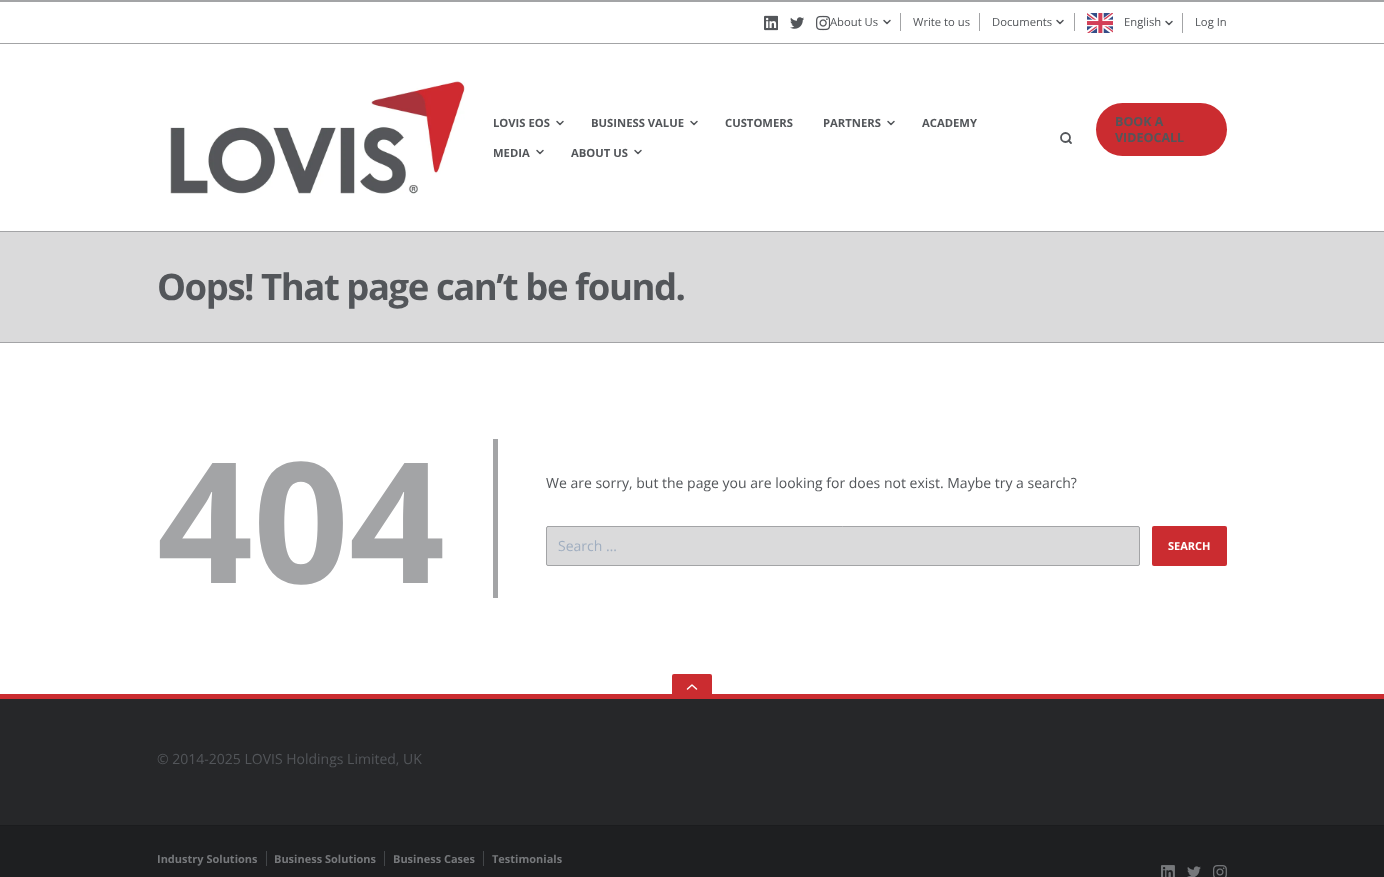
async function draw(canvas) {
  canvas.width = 1384;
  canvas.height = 877;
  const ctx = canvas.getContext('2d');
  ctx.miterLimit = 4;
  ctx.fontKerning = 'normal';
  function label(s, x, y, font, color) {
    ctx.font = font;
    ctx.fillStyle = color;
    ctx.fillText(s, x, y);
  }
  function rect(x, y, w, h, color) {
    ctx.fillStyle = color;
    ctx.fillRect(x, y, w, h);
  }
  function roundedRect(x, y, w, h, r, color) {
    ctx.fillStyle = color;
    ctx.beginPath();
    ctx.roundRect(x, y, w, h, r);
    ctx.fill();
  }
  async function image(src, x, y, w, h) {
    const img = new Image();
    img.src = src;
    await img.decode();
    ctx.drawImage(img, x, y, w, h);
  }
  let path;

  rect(0, 0, 1384, 877, '#fff');
  rect(0, 231, 1384, 1, '#a3a4a6');
  rect(0, 0, 1384, 2, '#a3a4a6');
  rect(0, 43, 1384, 1, '#a3a4a6');
  await image('assets/img1.png', 764, 15, 14, 16);
  await image('assets/img2.png', 790, 17, 14, 12);
  await image('assets/img3.png', 816, 15, 14, 16);
  rect(900, 13, 1, 18, '#a3a4a6');
  label('About Us', 830, 26, '11.25px Open Sans', '#53565a');
  path = new Path2D('M884 20.5L887 23.5L890 20.5');
  ctx.strokeStyle = '#53565a';
  ctx.lineWidth = 1.5;
  ctx.lineCap = 'round';
  ctx.lineJoin = 'round';
  ctx.stroke(path);
  rect(979, 13, 1, 18, '#a3a4a6');
  label('Write to us', 913, 26, '11.25px Open Sans', '#53565a');
  rect(1074, 13, 1, 18, '#a3a4a6');
  label('Documents', 992, 26, '11.25px Open Sans', '#53565a');
  path = new Path2D('M1057 20.5L1060 23.5L1063 20.5');
  ctx.stroke(path);
  rect(1182, 13, 1, 20, '#a3a4a6');
  await image('assets/img4.png', 1087, 13, 26, 20);
  label('English', 1124, 26, '11.25px Open Sans', '#53565a');
  path = new Path2D('M1166 21.5L1169 24.5L1172 21.5');
  ctx.stroke(path);
  label('Log In', 1195, 26, '11.25px Open Sans', '#53565a');
  await image('assets/img5.png', 170, 80, 295, 114);
  label('LOVIS EOS', 493, 127, 'bold 11.25px Open Sans', '#53565a');
  path = new Path2D('M557 121.5L560 124.5L563 121.5');
  ctx.stroke(path);
  label('BUSINESS VALUE', 591, 127, 'bold 11.25px Open Sans', '#53565a');
  path = new Path2D('M691 121.5L694 124.5L697 121.5');
  ctx.stroke(path);
  label('CUSTOMERS', 725, 127, 'bold 11.25px Open Sans', '#53565a');
  label('PARTNERS', 823, 127, 'bold 11.25px Open Sans', '#53565a');
  path = new Path2D('M888 121.5L891 124.5L894 121.5');
  ctx.stroke(path);
  label('ACADEMY', 922, 127, 'bold 11.25px Open Sans', '#53565a');
  label('MEDIA', 493, 157, 'bold 11.25px Open Sans', '#53565a');
  path = new Path2D('M537 150.5L540 153.5L543 150.5');
  ctx.stroke(path);
  label('ABOUT US', 571, 157, 'bold 11.25px Open Sans', '#53565a');
  path = new Path2D('M635 150.5L638 153.5L641 150.5');
  ctx.stroke(path);
  ctx.beginPath();
  ctx.arc(1065.5, 137.5, 4.5, 0, 2 * Math.PI);
  ctx.lineWidth = 1.8;
  ctx.stroke();
  path = new Path2D('M1071 143L1068.5 140.5');
  ctx.stroke(path);
  roundedRect(1096, 103, 131, 53, 26.5, '#cb2c30');
  label('BOOK A', 1115, 126, 'bold 12.5px Open Sans', '#53565a');
  label('VIDEOCALL', 1115, 142, 'bold 12.5px Open Sans', '#53565a');
  rect(0, 232, 1384, 110, '#dadadb');
  rect(0, 342, 1384, 1, '#a3a4a6');
  ctx.letterSpacing = '-1.45px';
  label('Oops! That page can’t be found.', 157, 300, 'bold 36.5px Open Sans', '#53565a');
  ctx.letterSpacing = '0px';
  label('404', 157, 583, 'bold 168px Open Sans', '#a3a4a6');
  rect(493, 439, 5, 159, '#a3a4a6');
  label('We are sorry, but the page you are looking for does not exist. Maybe try a search?', 546, 488, '14px Open Sans', '#53565a');
  ctx.fillStyle = '#dadadb';
  ctx.beginPath();
  ctx.roundRect(546.5, 526.5, 593, 39, 1.5);
  ctx.fill();
  ctx.strokeStyle = '#a3a4a6';
  ctx.lineWidth = 1;
  ctx.lineJoin = 'miter';
  ctx.stroke();
  label('Search …', 558, 551, '14px Open Sans', '#a0aec0');
  roundedRect(1152, 526, 75, 40, 2, '#cb2c30');
  label('SEARCH', 1168, 550, 'bold 11px Open Sans', '#fff');
  rect(0, 699, 1384, 126, '#262729');
  rect(0, 694, 1384, 5, '#cb2c30');
  ctx.beginPath();
  ctx.roundRect(672, 674, 40, 25, [2, 2, 0, 0]);
  ctx.fill();
  path = new Path2D('M696.5 689L692 685L687.5 689');
  ctx.strokeStyle = '#fff';
  ctx.lineWidth = 1.5;
  ctx.lineJoin = 'round';
  ctx.stroke(path);
  label('© 2014-2025 LOVIS Holdings Limited, UK', 157, 764, '14px Open Sans', '#53565a');
  rect(0, 826, 1384, 51, '#1e1f21');
  rect(0, 825, 1384, 1, '#1b1c1e');
  label('Industry Solutions', 157, 863, 'bold 11px Open Sans', '#76787b');
  rect(266, 851, 1, 15, '#434649');
  label('Business Solutions', 274, 863, 'bold 11px Open Sans', '#76787b');
  rect(384, 851, 1, 15, '#434649');
  label('Business Cases', 393, 863, 'bold 11px Open Sans', '#76787b');
  rect(483, 851, 1, 15, '#434649');
  label('Testimonials', 492, 863, 'bold 11px Open Sans', '#76787b');
  await image('assets/img6.png', 1161, 865, 14, 12);
  await image('assets/img7.png', 1187, 866, 14, 11);
  await image('assets/img8.png', 1213, 865, 14, 12);
}

draw(document.querySelector('canvas'));
